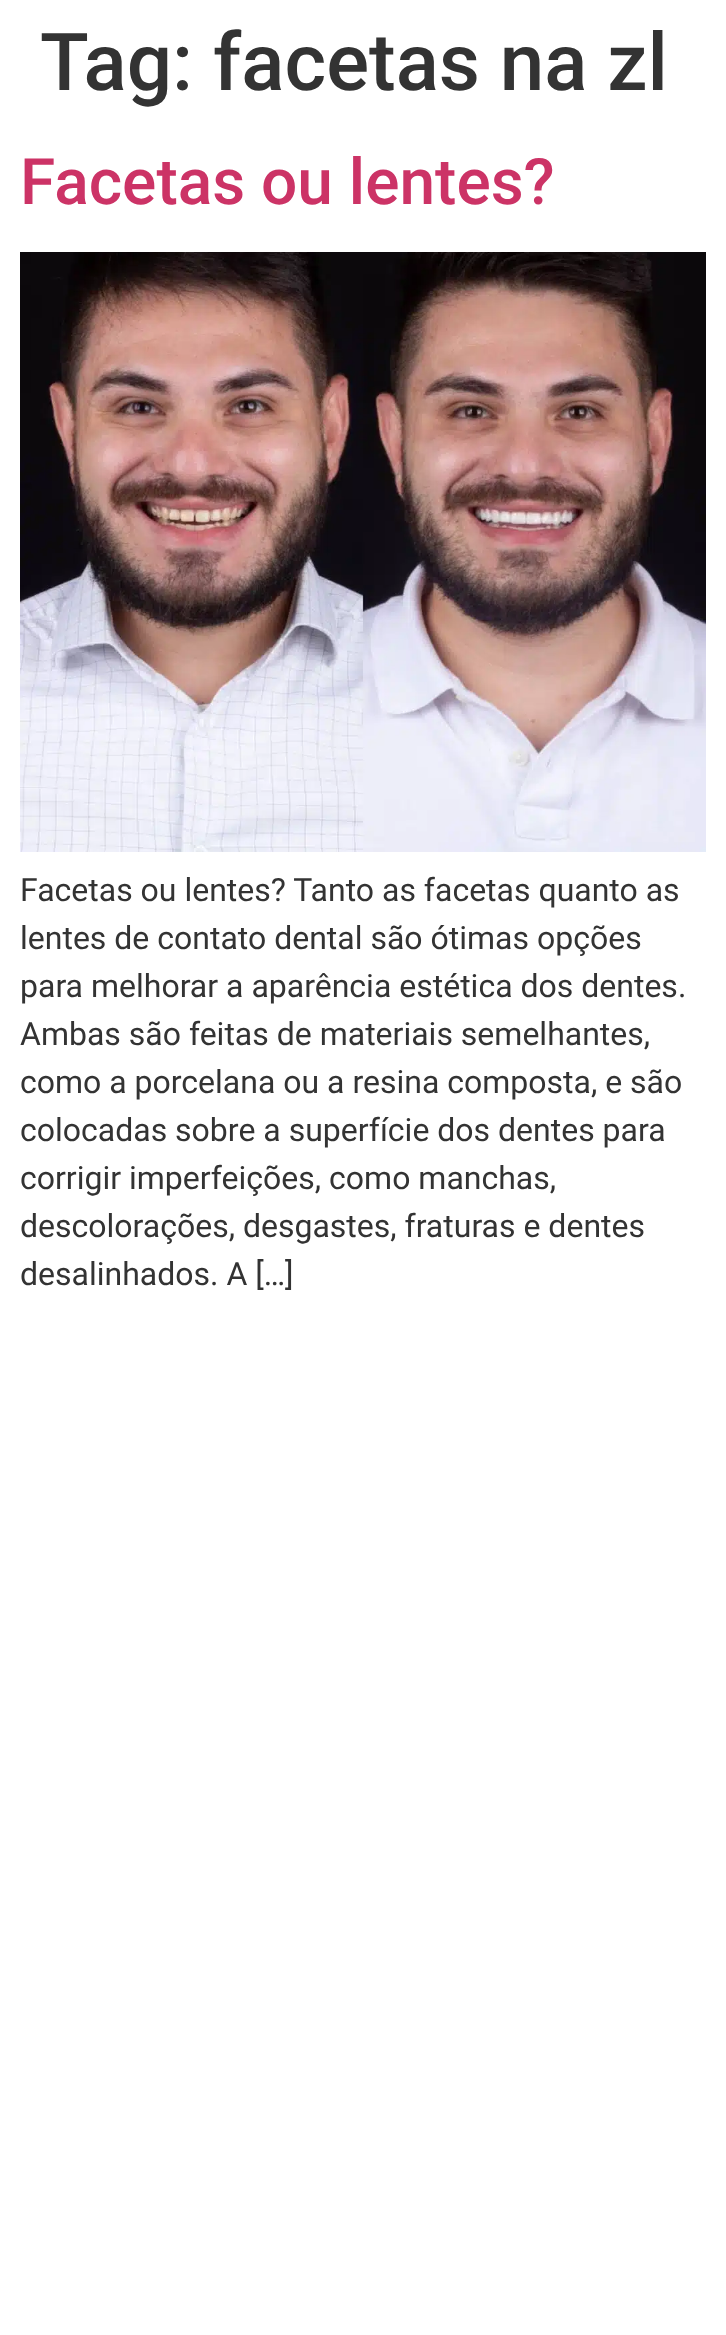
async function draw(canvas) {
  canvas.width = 726;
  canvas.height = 2335;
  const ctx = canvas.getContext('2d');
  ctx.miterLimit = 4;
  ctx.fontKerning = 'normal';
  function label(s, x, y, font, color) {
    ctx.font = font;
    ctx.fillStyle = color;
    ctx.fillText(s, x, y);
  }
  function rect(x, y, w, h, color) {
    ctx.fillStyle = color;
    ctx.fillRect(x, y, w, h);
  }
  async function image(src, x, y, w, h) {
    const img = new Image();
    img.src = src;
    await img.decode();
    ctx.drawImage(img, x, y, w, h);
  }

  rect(0, 0, 726, 2335, '#fff');
  label('Tag: facetas na zl', 40, 90, '500 80px Roboto', '#333');
  label('Facetas ou lentes?', 20, 204, '500 64px Roboto', '#c36');
  await image('assets/img1.png', 20, 252, 686, 600);
  label('Facetas ou lentes? Tanto as facetas quanto as', 20, 901, '32px Roboto', '#333');
  label('lentes de contato dental são ótimas opções', 20, 949, '32px Roboto', '#333');
  label('para melhorar a aparência estética dos dentes.', 20, 997, '32px Roboto', '#333');
  label('Ambas são feitas de materiais semelhantes,', 20, 1045, '32px Roboto', '#333');
  label('como a porcelana ou a resina composta, e são', 20, 1093, '32px Roboto', '#333');
  label('colocadas sobre a superfície dos dentes para', 20, 1141, '32px Roboto', '#333');
  label('corrigir imperfeições, como manchas,', 20, 1189, '32px Roboto', '#333');
  label('descolorações, desgastes, fraturas e dentes', 20, 1237, '32px Roboto', '#333');
  label('desalinhados. A […]', 20, 1285, '32px Roboto', '#333');
}

draw(document.querySelector('canvas'));
